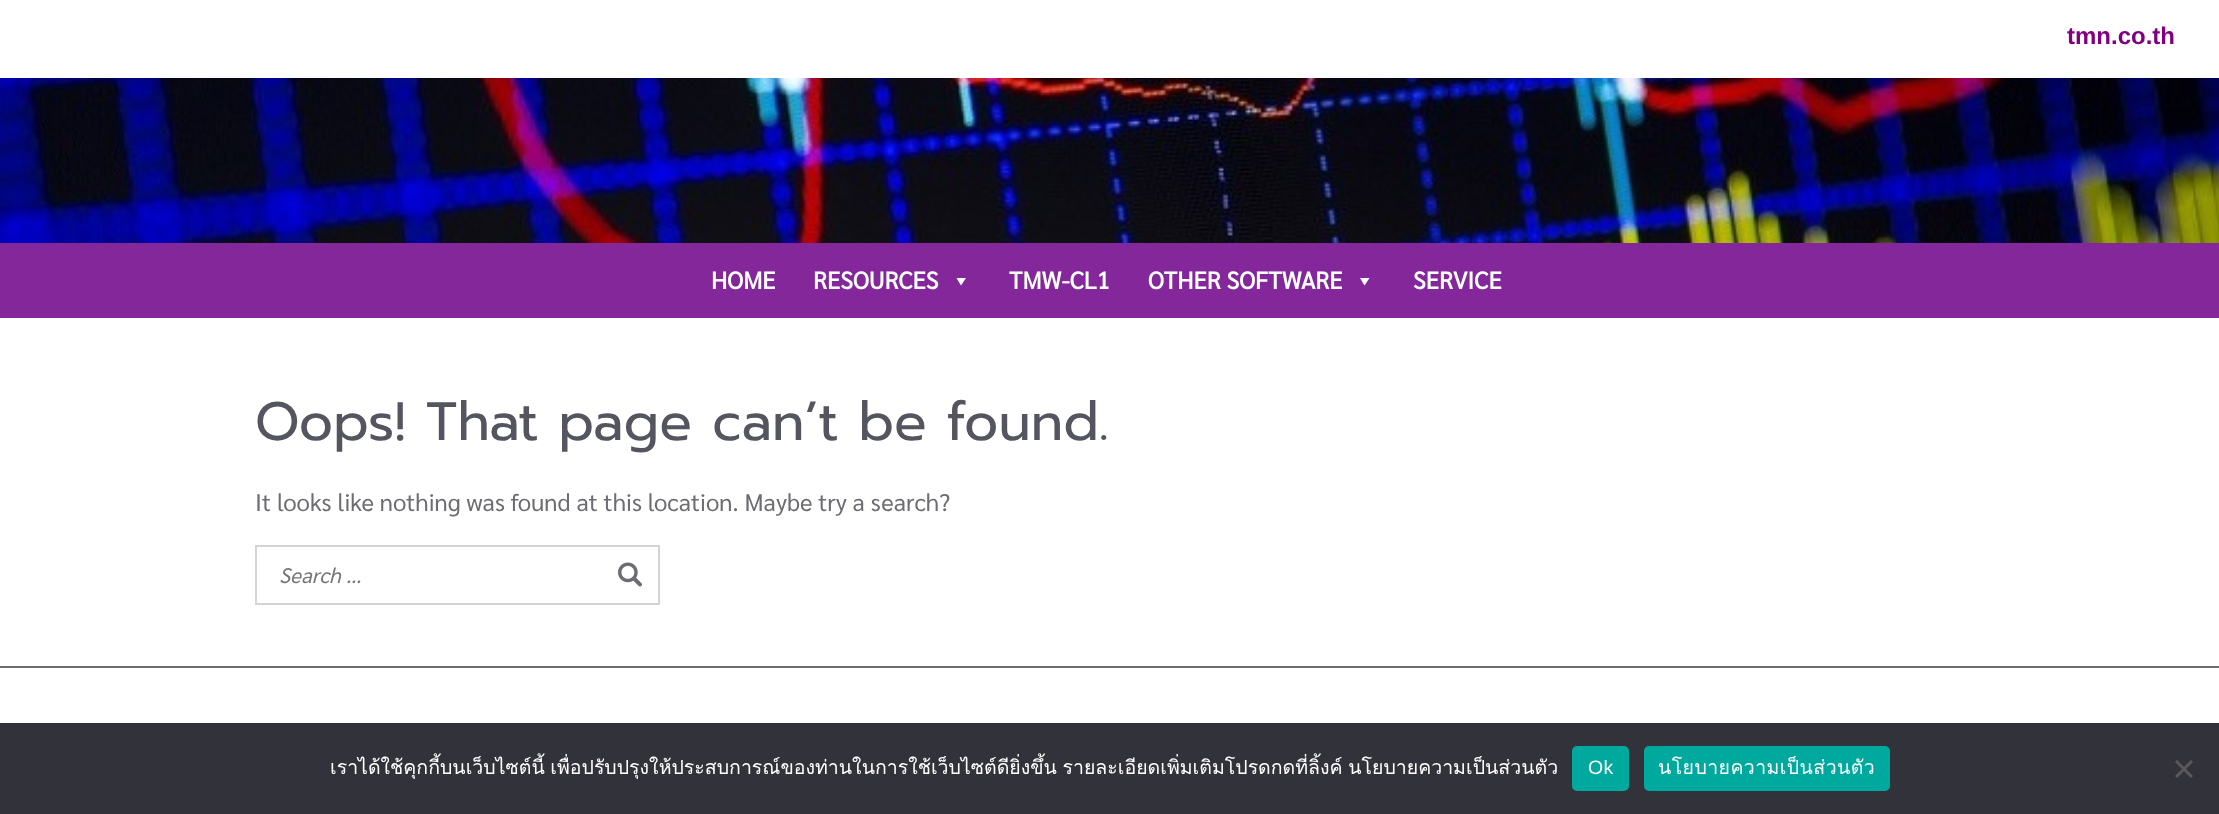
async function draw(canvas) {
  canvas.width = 2219;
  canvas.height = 814;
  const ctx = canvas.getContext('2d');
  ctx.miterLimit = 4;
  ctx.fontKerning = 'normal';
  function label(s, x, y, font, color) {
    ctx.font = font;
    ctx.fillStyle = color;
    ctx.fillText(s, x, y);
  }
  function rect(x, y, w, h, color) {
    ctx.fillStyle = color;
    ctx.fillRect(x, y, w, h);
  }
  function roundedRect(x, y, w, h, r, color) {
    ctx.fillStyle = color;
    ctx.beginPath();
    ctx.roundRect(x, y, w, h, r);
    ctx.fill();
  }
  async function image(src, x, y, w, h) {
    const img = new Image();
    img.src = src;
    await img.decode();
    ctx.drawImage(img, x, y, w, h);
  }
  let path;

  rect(0, 0, 2219, 814, '#fff');
  label('tmn.co.th', 2067, 44, 'bold 24px Liberation Sans', '#800080');
  await image('assets/img1.png', 0, 78, 2219, 165);
  rect(0, 243, 2219, 75, '#84279a');
  label('HOME', 711, 289, 'bold 24px Sarabun', '#fff');
  label('RESOURCES', 813, 289, 'bold 24px Sarabun', '#fff');
  path = new Path2D('M966 278L961 285.5L956.5 278Z');
  ctx.fill(path);
  label('TMW-CL1', 1009, 289, 'bold 24px Sarabun', '#fff');
  label('OTHER SOFTWARE', 1148, 289, 'bold 24px Sarabun', '#fff');
  path = new Path2D('M1369.5 278L1364.5 285.5L1360 278Z');
  ctx.fill(path);
  label('SERVICE', 1413, 289, 'bold 24px Sarabun', '#fff');
  label('Oops! That page can’t be found.', 255, 440, '54px Prompt', '#55555f');
  label('It looks like nothing was found at this location. Maybe try a search?', 255, 511, '24px Sarabun', '#6c6c72');
  ctx.strokeStyle = '#d4d4d4';
  ctx.lineWidth = 2;
  ctx.strokeRect(256, 546, 403, 58);
  label('Search …', 279, 583, 'italic 21px Sarabun', '#757575');
  await image('assets/img2.png', 618, 562, 24, 25);
  rect(0, 666, 2219, 2, '#6c6c72');
  rect(0, 723, 2219, 91, '#32323a');
  ctx.wordSpacing = '-1px';
  label('เราได้ใช้คุกกี้บนเว็บไซต์นี้ เพื่อปรับปรุงให้ประสบการณ์ของท่านในการใช้เว็บไซต์ดียิ่งขึ้น รายละเอียดเพิ่มเติมโปรดกดที่ลิ้งค์ นโยบายความเป็นส่วนตัว', 330, 774, '19.5px Loma', '#fff');
  roundedRect(1572, 746, 57, 45, 5, '#00a99d');
  ctx.letterSpacing = '0.4px';
  ctx.wordSpacing = '0px';
  label('Ok', 1588, 774, '19.5px Liberation Sans', '#fff');
  roundedRect(1644, 746, 246, 45, 5, '#00a99d');
  label('นโยบายความเป็นส่วนตัว', 1658, 774, '19.5px Loma', '#fff');
  ctx.fillStyle = '#59595d';
  path = new Path2D('M2191 760L2193 762L2177 778L2175 776Z');
  ctx.fill(path);
  path = new Path2D('M2175 762L2177 760L2193 776L2191 778Z');
  ctx.fill(path);
}

draw(document.querySelector('canvas'));
